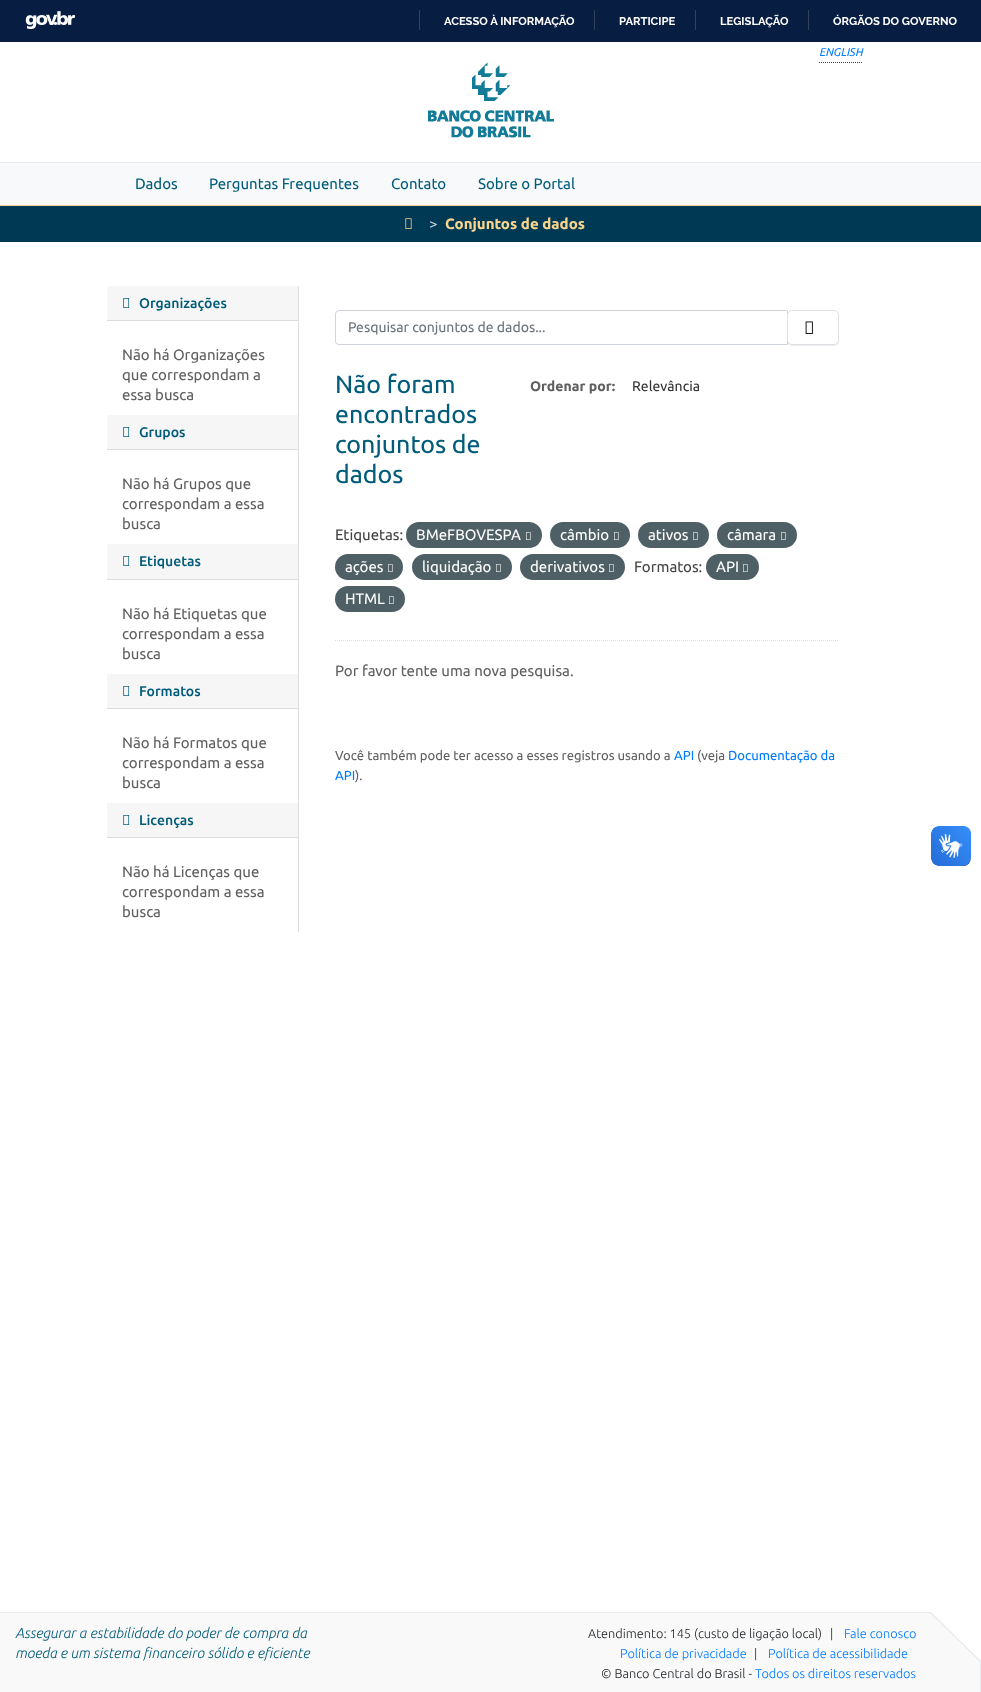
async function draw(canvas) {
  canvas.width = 981;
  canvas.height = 1692;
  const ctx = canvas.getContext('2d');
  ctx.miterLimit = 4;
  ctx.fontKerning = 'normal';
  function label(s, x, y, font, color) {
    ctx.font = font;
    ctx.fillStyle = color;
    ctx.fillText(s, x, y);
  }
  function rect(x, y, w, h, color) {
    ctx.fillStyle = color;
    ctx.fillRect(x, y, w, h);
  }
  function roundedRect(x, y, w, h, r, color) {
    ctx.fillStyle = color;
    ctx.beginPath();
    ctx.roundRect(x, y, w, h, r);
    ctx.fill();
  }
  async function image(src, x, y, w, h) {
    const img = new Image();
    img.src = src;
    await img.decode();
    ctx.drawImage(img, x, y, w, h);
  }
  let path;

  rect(0, 0, 981, 1692, '#fff');
  rect(0, 0, 981, 42, '#071d41');
  await image('assets/img1.png', 25, 11, 50, 18);
  rect(419, 10, 1, 20, '#32425b');
  label('ACESSO À INFORMAÇÃO', 444, 25, 'bold 11.25px Raleway', '#fff');
  rect(594, 10, 1, 20, '#32425b');
  label('PARTICIPE', 619, 25, 'bold 11.25px Raleway', '#fff');
  rect(695, 10, 1, 20, '#32425b');
  label('LEGISLAÇÃO', 720, 25, 'bold 11.25px Raleway', '#fff');
  rect(808, 10, 1, 20, '#32425b');
  label('ÓRGÃOS DO GOVERNO', 833, 25, 'bold 11.25px Raleway', '#fff');
  path = new Path2D('M819 62.5H863');
  ctx.strokeStyle = '#025c75';
  ctx.setLineDash([1, 1]);
  ctx.stroke(path);
  label('ENGLISH', 819, 56, 'italic 11.25px Ubuntu', '#007bff');
  await image('assets/img2.png', 428, 62, 126, 76);
  rect(0, 163, 981, 42, '#f8f9fa');
  rect(0, 162, 981, 1, '#eaeaea');
  rect(0, 205, 981, 1, '#edd297');
  label('Dados', 135, 189, '15px Ubuntu', '#005c7a');
  label('Perguntas Frequentes', 209, 189, '15px Ubuntu', '#005c7a');
  label('Contato', 391, 189, '15px Ubuntu', '#005c7a');
  label('Sobre o Portal', 478, 189, '15px Ubuntu', '#005c7a');
  rect(0, 206, 981, 36, '#003954');
  await image('assets/img3.png', 405, 218, 7, 11);
  label('>', 429, 229, '15px Ubuntu', '#ccd7dd');
  label('Conjuntos de dados', 445, 229, 'bold 15px Ubuntu', '#f8d48d');
  ctx.fillStyle = '#f6f6f6';
  ctx.beginPath();
  ctx.roundRect(107, 286, 191, 35, [3, 0, 0, 0]);
  ctx.fill();
  rect(107, 320, 191, 1, '#ddd');
  await image('assets/img4.png', 123, 298, 7, 10);
  label('Organizações', 139, 308, '500 14px Ubuntu', '#005c7a');
  label('Não há Organizações', 122, 360, '15px Ubuntu', '#606060');
  label('que correspondam a', 122, 380, '15px Ubuntu', '#606060');
  label('essa busca', 122, 400, '15px Ubuntu', '#606060');
  rect(107, 415, 191, 34, '#f6f6f6');
  rect(107, 449, 191, 1, '#ddd');
  await image('assets/img4.png', 123, 427, 7, 10);
  label('Grupos', 139, 437, '500 14px Ubuntu', '#005c7a');
  label('Não há Grupos que', 122, 489, '15px Ubuntu', '#606060');
  label('correspondam a essa', 122, 509, '15px Ubuntu', '#606060');
  label('busca', 122, 529, '15px Ubuntu', '#606060');
  rect(107, 544, 191, 35, '#f6f6f6');
  rect(107, 579, 191, 1, '#ddd');
  await image('assets/img4.png', 123, 556, 7, 10);
  label('Etiquetas', 139, 566, '500 14px Ubuntu', '#005c7a');
  label('Não há Etiquetas que', 122, 619, '15px Ubuntu', '#606060');
  label('correspondam a essa', 122, 639, '15px Ubuntu', '#606060');
  label('busca', 122, 659, '15px Ubuntu', '#606060');
  rect(107, 674, 191, 34, '#f6f6f6');
  rect(107, 708, 191, 1, '#ddd');
  await image('assets/img4.png', 123, 686, 7, 10);
  label('Formatos', 139, 696, '500 14px Ubuntu', '#005c7a');
  label('Não há Formatos que', 122, 748, '15px Ubuntu', '#606060');
  label('correspondam a essa', 122, 768, '15px Ubuntu', '#606060');
  label('busca', 122, 788, '15px Ubuntu', '#606060');
  rect(107, 803, 191, 34, '#f6f6f6');
  rect(107, 837, 191, 1, '#ddd');
  await image('assets/img4.png', 123, 815, 7, 10);
  label('Licenças', 139, 825, '500 14px Ubuntu', '#005c7a');
  label('Não há Licenças que', 122, 877, '15px Ubuntu', '#606060');
  label('correspondam a essa', 122, 897, '15px Ubuntu', '#606060');
  label('busca', 122, 917, '15px Ubuntu', '#606060');
  rect(298, 286, 1, 646, '#ddd');
  path = new Path2D('M335 640.5H839');
  ctx.strokeStyle = '#ddd';
  ctx.stroke(path);
  ctx.beginPath();
  ctx.roundRect(335.5, 310.5, 452, 34, [3.5, 0, 0, 3.5]);
  ctx.strokeStyle = '#ced4da';
  ctx.setLineDash([]);
  ctx.stroke();
  label('Pesquisar conjuntos de dados...', 348, 332, '14px Ubuntu', '#6c757d');
  ctx.fillStyle = '#00000012';
  ctx.filter = 'blur(0.5px)';
  ctx.beginPath();
  ctx.roundRect(787, 311, 52, 35, 5);
  ctx.fill();
  ctx.filter = 'none';
  ctx.fillStyle = '#fff';
  ctx.beginPath();
  ctx.roundRect(787.5, 310.5, 51, 34, 4.5);
  ctx.fill();
  ctx.strokeStyle = '#dee2e6';
  ctx.stroke();
  await image('assets/img5.png', 805, 321, 8, 13);
  label('Não foram', 335, 393, '25px Ubuntu', '#005c7a');
  label('encontrados', 335, 423, '25px Ubuntu', '#005c7a');
  label('conjuntos de', 335, 453, '25px Ubuntu', '#005c7a');
  label('dados', 335, 483, '25px Ubuntu', '#005c7a');
  label('Ordenar por:', 530, 391, 'bold 14px Ubuntu', '#606060');
  label('Relevância', 632, 391, '14px Ubuntu', '#333');
  label('Etiquetas:', 335, 540, '15px Ubuntu', '#444');
  roundedRect(406, 522, 136, 26, 13, '#4e5f65');
  label('BMeFBOVESPA', 416, 540, '15px Ubuntu', '#fff');
  await image('assets/img6.png', 526, 532, 5, 8);
  roundedRect(550, 522, 80, 26, 13, '#4e5f65');
  label('câmbio', 560, 540, '15px Ubuntu', '#fff');
  await image('assets/img6.png', 614, 532, 5, 8);
  roundedRect(638, 522, 71, 26, 13, '#4e5f65');
  label('ativos', 648, 540, '15px Ubuntu', '#fff');
  await image('assets/img6.png', 693, 532, 5, 8);
  roundedRect(717, 522, 80, 26, 13, '#4e5f65');
  label('câmara', 727, 540, '15px Ubuntu', '#fff');
  await image('assets/img6.png', 781, 532, 5, 8);
  roundedRect(335, 554, 68, 26, 13, '#4e5f65');
  label('ações', 345, 572, '15px Ubuntu', '#fff');
  await image('assets/img6.png', 388, 564, 5, 8);
  roundedRect(412, 554, 100, 26, 13, '#4e5f65');
  label('liquidação', 422, 572, '15px Ubuntu', '#fff');
  await image('assets/img6.png', 496, 564, 5, 8);
  roundedRect(520, 554, 105, 26, 13, '#4e5f65');
  label('derivativos', 530, 572, '15px Ubuntu', '#fff');
  await image('assets/img6.png', 609, 564, 5, 8);
  label('Formatos:', 634, 572, '15px Ubuntu', '#444');
  roundedRect(706, 554, 53, 26, 13, '#4e5f65');
  label('API', 716, 572, '15px Ubuntu', '#fff');
  await image('assets/img6.png', 743, 564, 5, 8);
  roundedRect(335, 586, 70, 26, 13, '#4e5f65');
  label('HTML', 345, 604, '15px Ubuntu', '#fff');
  await image('assets/img6.png', 389, 596, 5, 8);
  label('Por favor tente uma nova pesquisa.', 335, 676, '15px Ubuntu', '#606060');
  label('Você também pode ter acesso a esses registros usando a', 335, 760, '13.1px Ubuntu', '#606060');
  label('API', 674, 760, '13.1px Ubuntu', '#007bff');
  label('(veja', 697, 760, '13.1px Ubuntu', '#606060');
  label('Documentação da', 728, 760, '13.1px Ubuntu', '#007bff');
  label('API', 335, 780, '13.1px Ubuntu', '#007bff');
  label(').', 355, 780, '13.1px Ubuntu', '#606060');
  await image('assets/img7.png', 931, 826, 40, 40);
  await image('assets/img8.png', 931, 826, 40, 40);
  rect(0, 1613, 980, 79, '#f9f9f9');
  rect(0, 1612, 932, 1, '#e9ecef');
  rect(980, 1661, 1, 31, '#e9ecef');
  ctx.fillStyle = '#fff';
  path = new Path2D('M931 1612H981V1662Z');
  ctx.fill(path);
  ctx.fillStyle = '#e9ecef';
  path = new Path2D('M930 1613L931 1612L981 1661L980 1662Z');
  ctx.fill(path);
  label('Assegurar a estabilidade do poder de compra da', 15, 1638, 'italic 300 14.4px Ubuntu', '#005c7a');
  label('moeda e um sistema financeiro sólido e eficiente', 15, 1658, 'italic 300 14.4px Ubuntu', '#005c7a');
  label('Atendimento: 145 (custo de ligação local)', 588, 1638, '300 12.75px Ubuntu', '#212529');
  label('|', 830, 1638, '300 12.75px Ubuntu', '#212529');
  label('Fale conosco', 844, 1638, '300 12.75px Ubuntu', '#007bff');
  label('Política de privacidade', 620, 1658, '300 12.75px Ubuntu', '#007bff');
  label('|', 754, 1658, '300 12.75px Ubuntu', '#212529');
  label('Política de acessibilidade', 768, 1658, '300 12.75px Ubuntu', '#007bff');
  label('© Banco Central do Brasil -', 601, 1678, '300 12.75px Ubuntu', '#212529');
  label('Todos os direitos reservados', 755, 1678, '300 12.75px Ubuntu', '#007bff');
}

draw(document.querySelector('canvas'));
